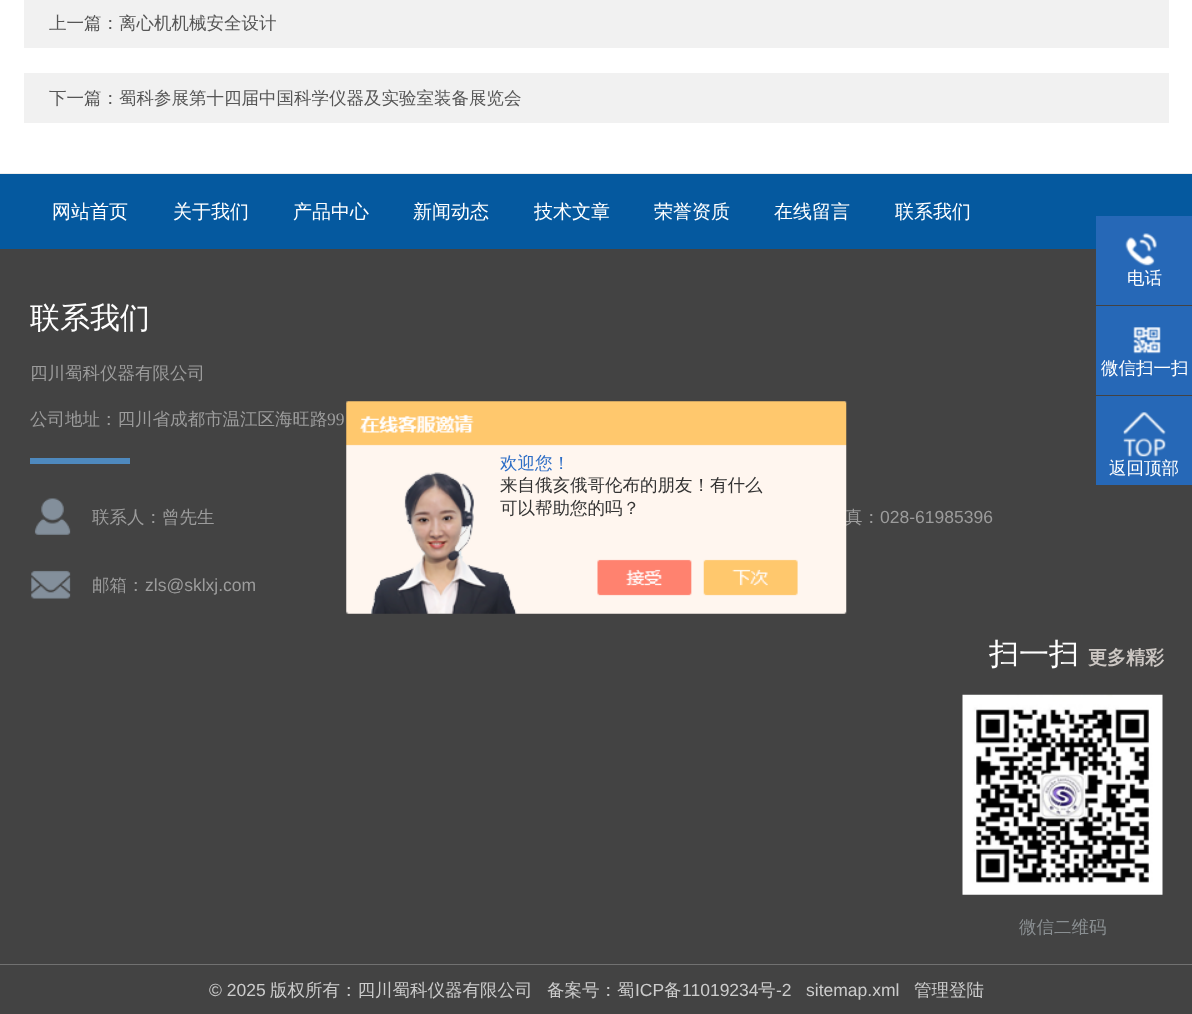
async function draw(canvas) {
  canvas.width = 1192;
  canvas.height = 1014;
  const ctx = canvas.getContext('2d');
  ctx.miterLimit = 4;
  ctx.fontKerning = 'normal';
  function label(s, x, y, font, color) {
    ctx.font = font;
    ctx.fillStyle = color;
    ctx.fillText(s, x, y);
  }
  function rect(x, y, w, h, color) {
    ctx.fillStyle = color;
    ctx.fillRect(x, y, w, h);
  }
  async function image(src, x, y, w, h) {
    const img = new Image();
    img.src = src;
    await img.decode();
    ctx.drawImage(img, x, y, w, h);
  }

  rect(0, 0, 1192, 1014, '#fff');
  rect(24, 0, 1145, 48, '#f1f1f1');
  label('上一篇：离心机机械安全设计', 49, 29, '500 17.5px WenQuanYi Zen Hei', '#565656');
  rect(24, 73, 1145, 50, '#f1f1f1');
  label('下一篇：蜀科参展第十四届中国科学仪器及实验室装备展览会', 49, 104, '500 17.5px WenQuanYi Zen Hei', '#565656');
  rect(0, 174, 1192, 75, '#05599f');
  rect(0, 173, 1192, 1, '#eee');
  label('网站首页', 52, 218, '500 19px WenQuanYi Zen Hei', '#fff');
  label('关于我们', 173, 218, '500 19px WenQuanYi Zen Hei', '#fff');
  label('产品中心', 293, 218, '500 19px WenQuanYi Zen Hei', '#fff');
  label('新闻动态', 413, 218, '500 19px WenQuanYi Zen Hei', '#fff');
  label('技术文章', 534, 218, '500 19px WenQuanYi Zen Hei', '#fff');
  label('荣誉资质', 654, 218, '500 19px WenQuanYi Zen Hei', '#fff');
  label('在线留言', 774, 218, '500 19px WenQuanYi Zen Hei', '#fff');
  label('联系我们', 895, 218, '500 19px WenQuanYi Zen Hei', '#fff');
  rect(0, 249, 1192, 765, '#434343');
  label('联系我们', 30, 328, '500 30px WenQuanYi Zen Hei', '#fff');
  label('四川蜀科仪器有限公司', 30, 379, '500 17.5px WenQuanYi Zen Hei', '#9c9c9c');
  label('公司地址：四川省成都市温江区海旺路', 30, 425, '500 17.5px WenQuanYi Zen Hei', '#9c9c9c');
  label('99', 327, 425, '17.5px Liberation Serif', '#9c9c9c');
  rect(30, 458, 100, 6, '#4e89be');
  await image('assets/img1.png', 34, 498, 37, 37);
  label('联系人：曾先生', 92, 523, '500 17.5px WenQuanYi Zen Hei', '#9c9c9c');
  label('真：', 845, 523, '500 17.5px WenQuanYi Zen Hei', '#9c9c9c');
  label('028-61985396', 880, 523, '17.5px Liberation Sans', '#9c9c9c');
  await image('assets/img2.png', 31, 570, 40, 29);
  label('邮箱：', 92, 591, '500 17.5px WenQuanYi Zen Hei', '#9c9c9c');
  label('zls@sklxj.com', 145, 591, '17.5px Liberation Sans', '#9c9c9c');
  label('扫一扫', 989, 664, '500 30px WenQuanYi Zen Hei', '#fff');
  label('更多精彩', 1088, 664, 'bold 19px WenQuanYi Zen Hei', '#ccc7c3');
  await image('assets/img3.png', 962, 694, 201, 201);
  label('微信二维码', 1019, 933, '500 17.5px WenQuanYi Zen Hei', '#8a8f92');
  rect(0, 964, 1192, 1, '#717171');
  label('© 2025', 209, 996, '17.5px Liberation Sans', '#ccc');
  label('版权所有：四川蜀科仪器有限公司', 270, 996, '500 17.5px WenQuanYi Zen Hei', '#ccc');
  label('备案号：蜀', 547, 996, '500 17.5px WenQuanYi Zen Hei', '#ccc');
  label('ICP', 635, 996, '17.5px Liberation Sans', '#ccc');
  label('备', 664, 996, '500 17.5px WenQuanYi Zen Hei', '#ccc');
  label('11019234', 682, 996, '17.5px Liberation Sans', '#ccc');
  label('号', 758, 996, '500 17.5px WenQuanYi Zen Hei', '#ccc');
  label('-2', 776, 996, '17.5px Liberation Sans', '#ccc');
  label('sitemap.xml', 806, 996, '17.5px Liberation Sans', '#ccc');
  label('管理登陆', 914, 996, '500 17.5px WenQuanYi Zen Hei', '#ccc');
  rect(1096, 216, 96, 89, '#2668b7');
  await image('assets/img4.png', 1125, 233, 32, 33);
  label('电话', 1127, 284, '500 17.5px WenQuanYi Zen Hei', '#fff');
  rect(1096, 306, 96, 89, '#2668b7');
  await image('assets/img5.png', 1133, 327, 28, 27);
  label('微信扫一扫', 1101, 374, '500 17.5px WenQuanYi Zen Hei', '#fff');
  rect(1096, 396, 96, 89, '#2668b7');
  await image('assets/img6.png', 1123, 412, 43, 45);
  label('返回顶部', 1109, 474, '500 17.5px WenQuanYi Zen Hei', '#fff');
  await image('assets/img7.png', 346, 401, 501, 213);
  label('欢迎您！', 500, 469, '500 17.5px WenQuanYi Zen Hei', '#2e6ec6');
  label('来自俄亥俄哥伦布的朋友！有什么', 500, 491, '500 17.5px WenQuanYi Zen Hei', '#333');
  label('可以帮助您的吗？', 500, 514, '500 17.5px WenQuanYi Zen Hei', '#333');
}

draw(document.querySelector('canvas'));
